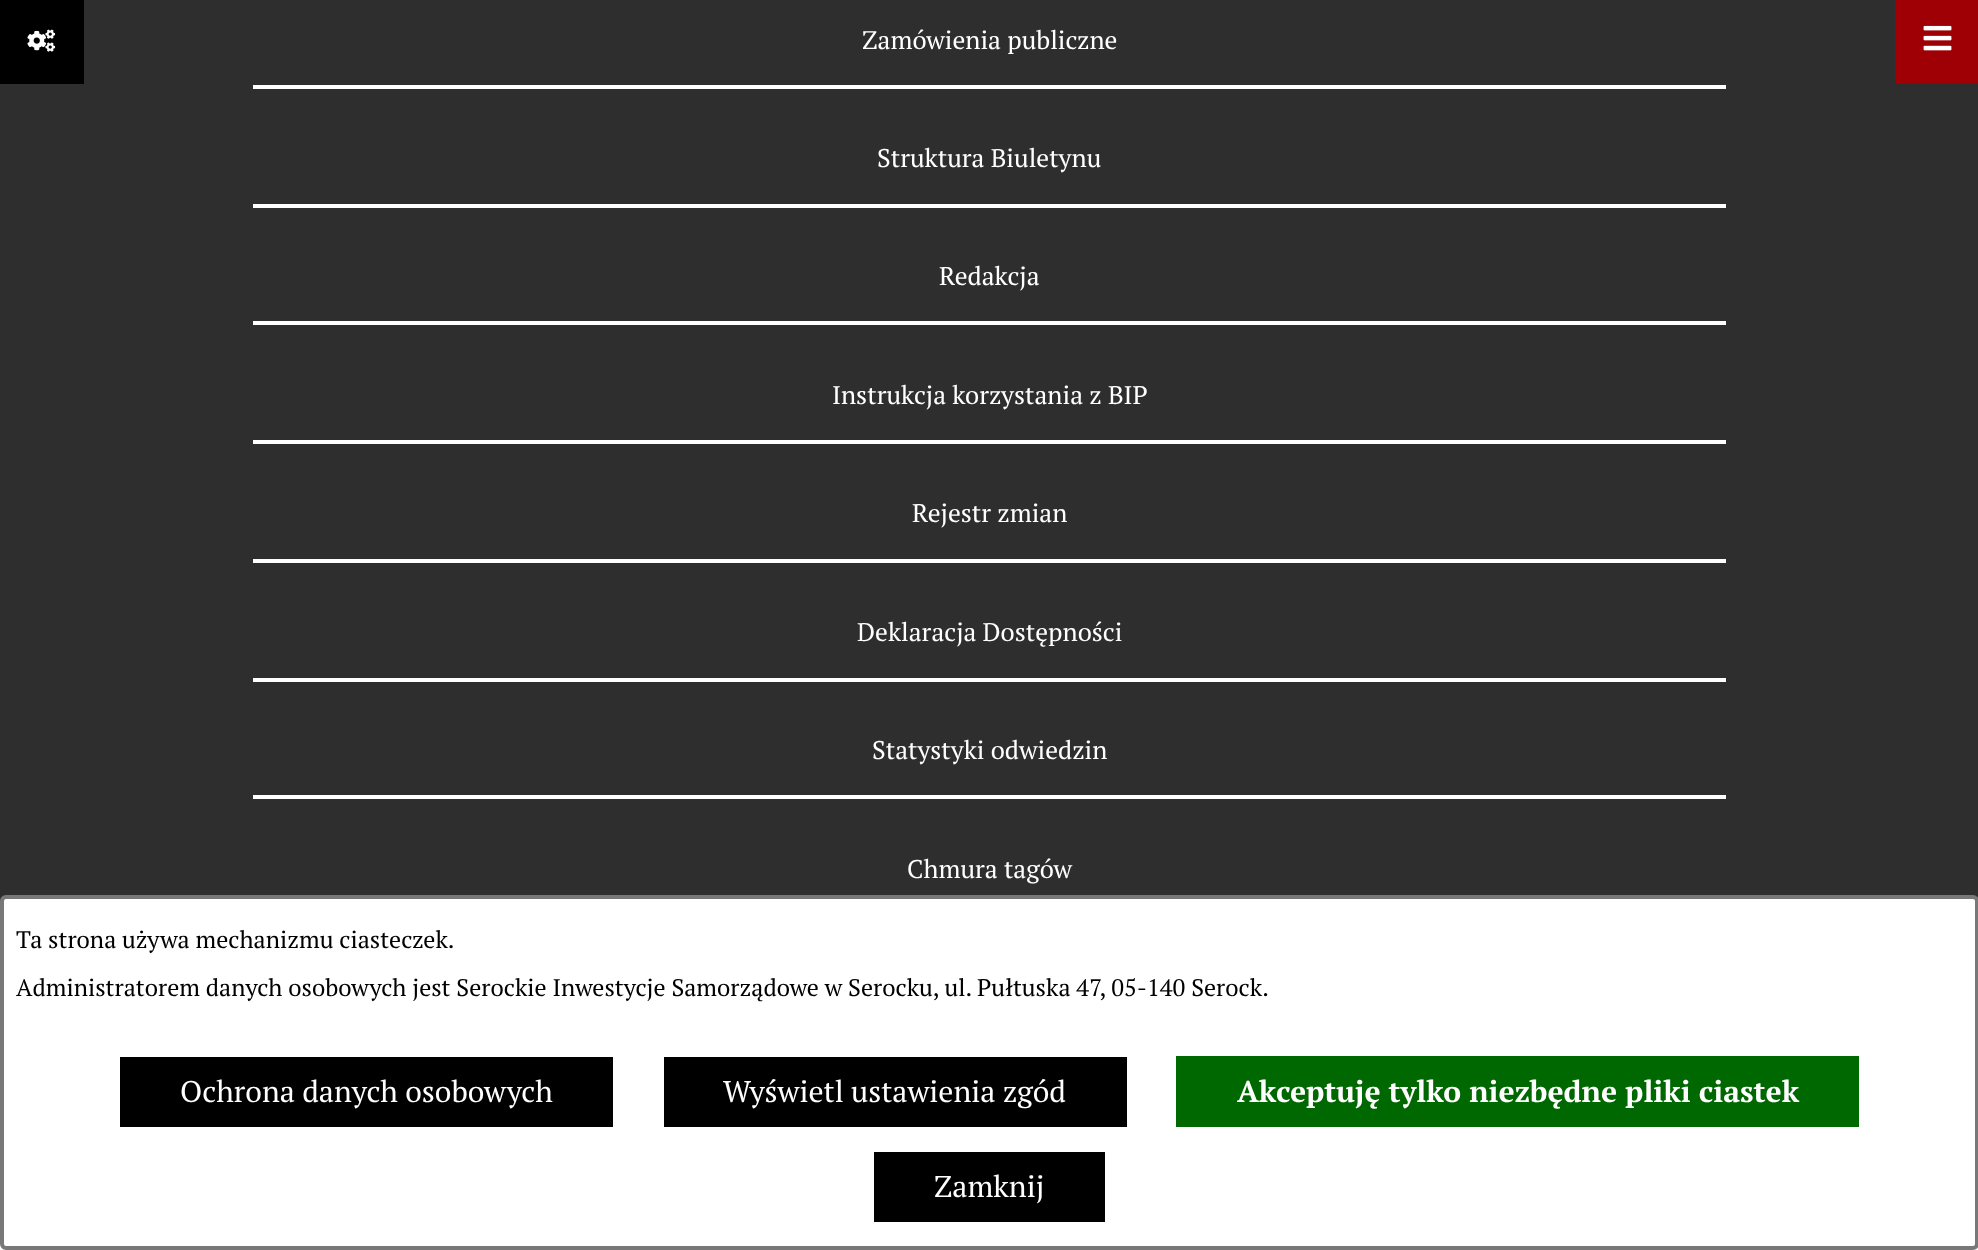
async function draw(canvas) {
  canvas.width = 1978;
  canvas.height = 1250;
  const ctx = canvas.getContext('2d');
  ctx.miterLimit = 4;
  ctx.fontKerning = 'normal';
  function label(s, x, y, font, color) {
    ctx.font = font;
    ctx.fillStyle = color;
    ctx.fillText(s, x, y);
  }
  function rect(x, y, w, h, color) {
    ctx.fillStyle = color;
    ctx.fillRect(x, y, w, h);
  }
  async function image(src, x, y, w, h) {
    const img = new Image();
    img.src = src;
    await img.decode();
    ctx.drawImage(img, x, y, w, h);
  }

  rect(0, 0, 1978, 1250, '#fff');
  rect(0, 0, 1978, 901, '#2e2e2e');
  rect(0, 0, 84, 84, '#000');
  await image('assets/img1.png', 27, 29, 29, 23);
  rect(1895, 0, 83, 84, '#9e0005');
  await image('assets/img2.png', 1923, 25, 29, 26);
  rect(253, 85, 1473, 4, '#fff');
  label('Zamówienia publiczne', 862, 49, '25.5px PT Serif', '#fff');
  rect(253, 204, 1473, 4, '#fff');
  label('Struktura Biuletynu', 877, 167, '25.5px PT Serif', '#fff');
  rect(253, 321, 1473, 4, '#fff');
  label('Redakcja', 939, 285, '25.5px PT Serif', '#fff');
  rect(253, 440, 1473, 4, '#fff');
  label('Instrukcja korzystania z BIP', 832, 404, '25.5px PT Serif', '#fff');
  rect(253, 559, 1473, 4, '#fff');
  label('Rejestr zmian', 912, 522, '25.5px PT Serif', '#fff');
  rect(253, 678, 1473, 4, '#fff');
  label('Deklaracja Dostępności', 857, 641, '25.5px PT Serif', '#fff');
  rect(253, 795, 1473, 4, '#fff');
  label('Statystyki odwiedzin', 872, 759, '25.5px PT Serif', '#fff');
  label('Chmura tagów', 907, 878, '25.5px PT Serif', '#fff');
  ctx.beginPath();
  ctx.roundRect(2, 897, 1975, 351, 4);
  ctx.fill();
  ctx.strokeStyle = '#787878';
  ctx.lineWidth = 4;
  ctx.stroke();
  label('Ta strona używa mechanizmu ciasteczek.', 16, 948, '24px PT Serif', '#000');
  label('Administratorem danych osobowych jest Serockie Inwestycje Samorządowe w Serocku, ul. Pułtuska 47, 05-140 Serock.', 16, 996, '24px PT Serif', '#000');
  rect(120, 1057, 493, 70, '#000');
  label('Ochrona danych osobowych', 180, 1102, '30px PT Serif', '#fff');
  rect(664, 1057, 463, 70, '#000');
  label('Wyświetl ustawienia zgód', 723, 1102, '30px PT Serif', '#fff');
  rect(1176, 1056, 683, 71, '#006800');
  label('Akceptuję tylko niezbędne pliki ciastek', 1237, 1102, 'bold 30px PT Serif', '#fff');
  rect(874, 1152, 231, 70, '#000');
  label('Zamknij', 934, 1197, '30px PT Serif', '#fff');
}

draw(document.querySelector('canvas'));
